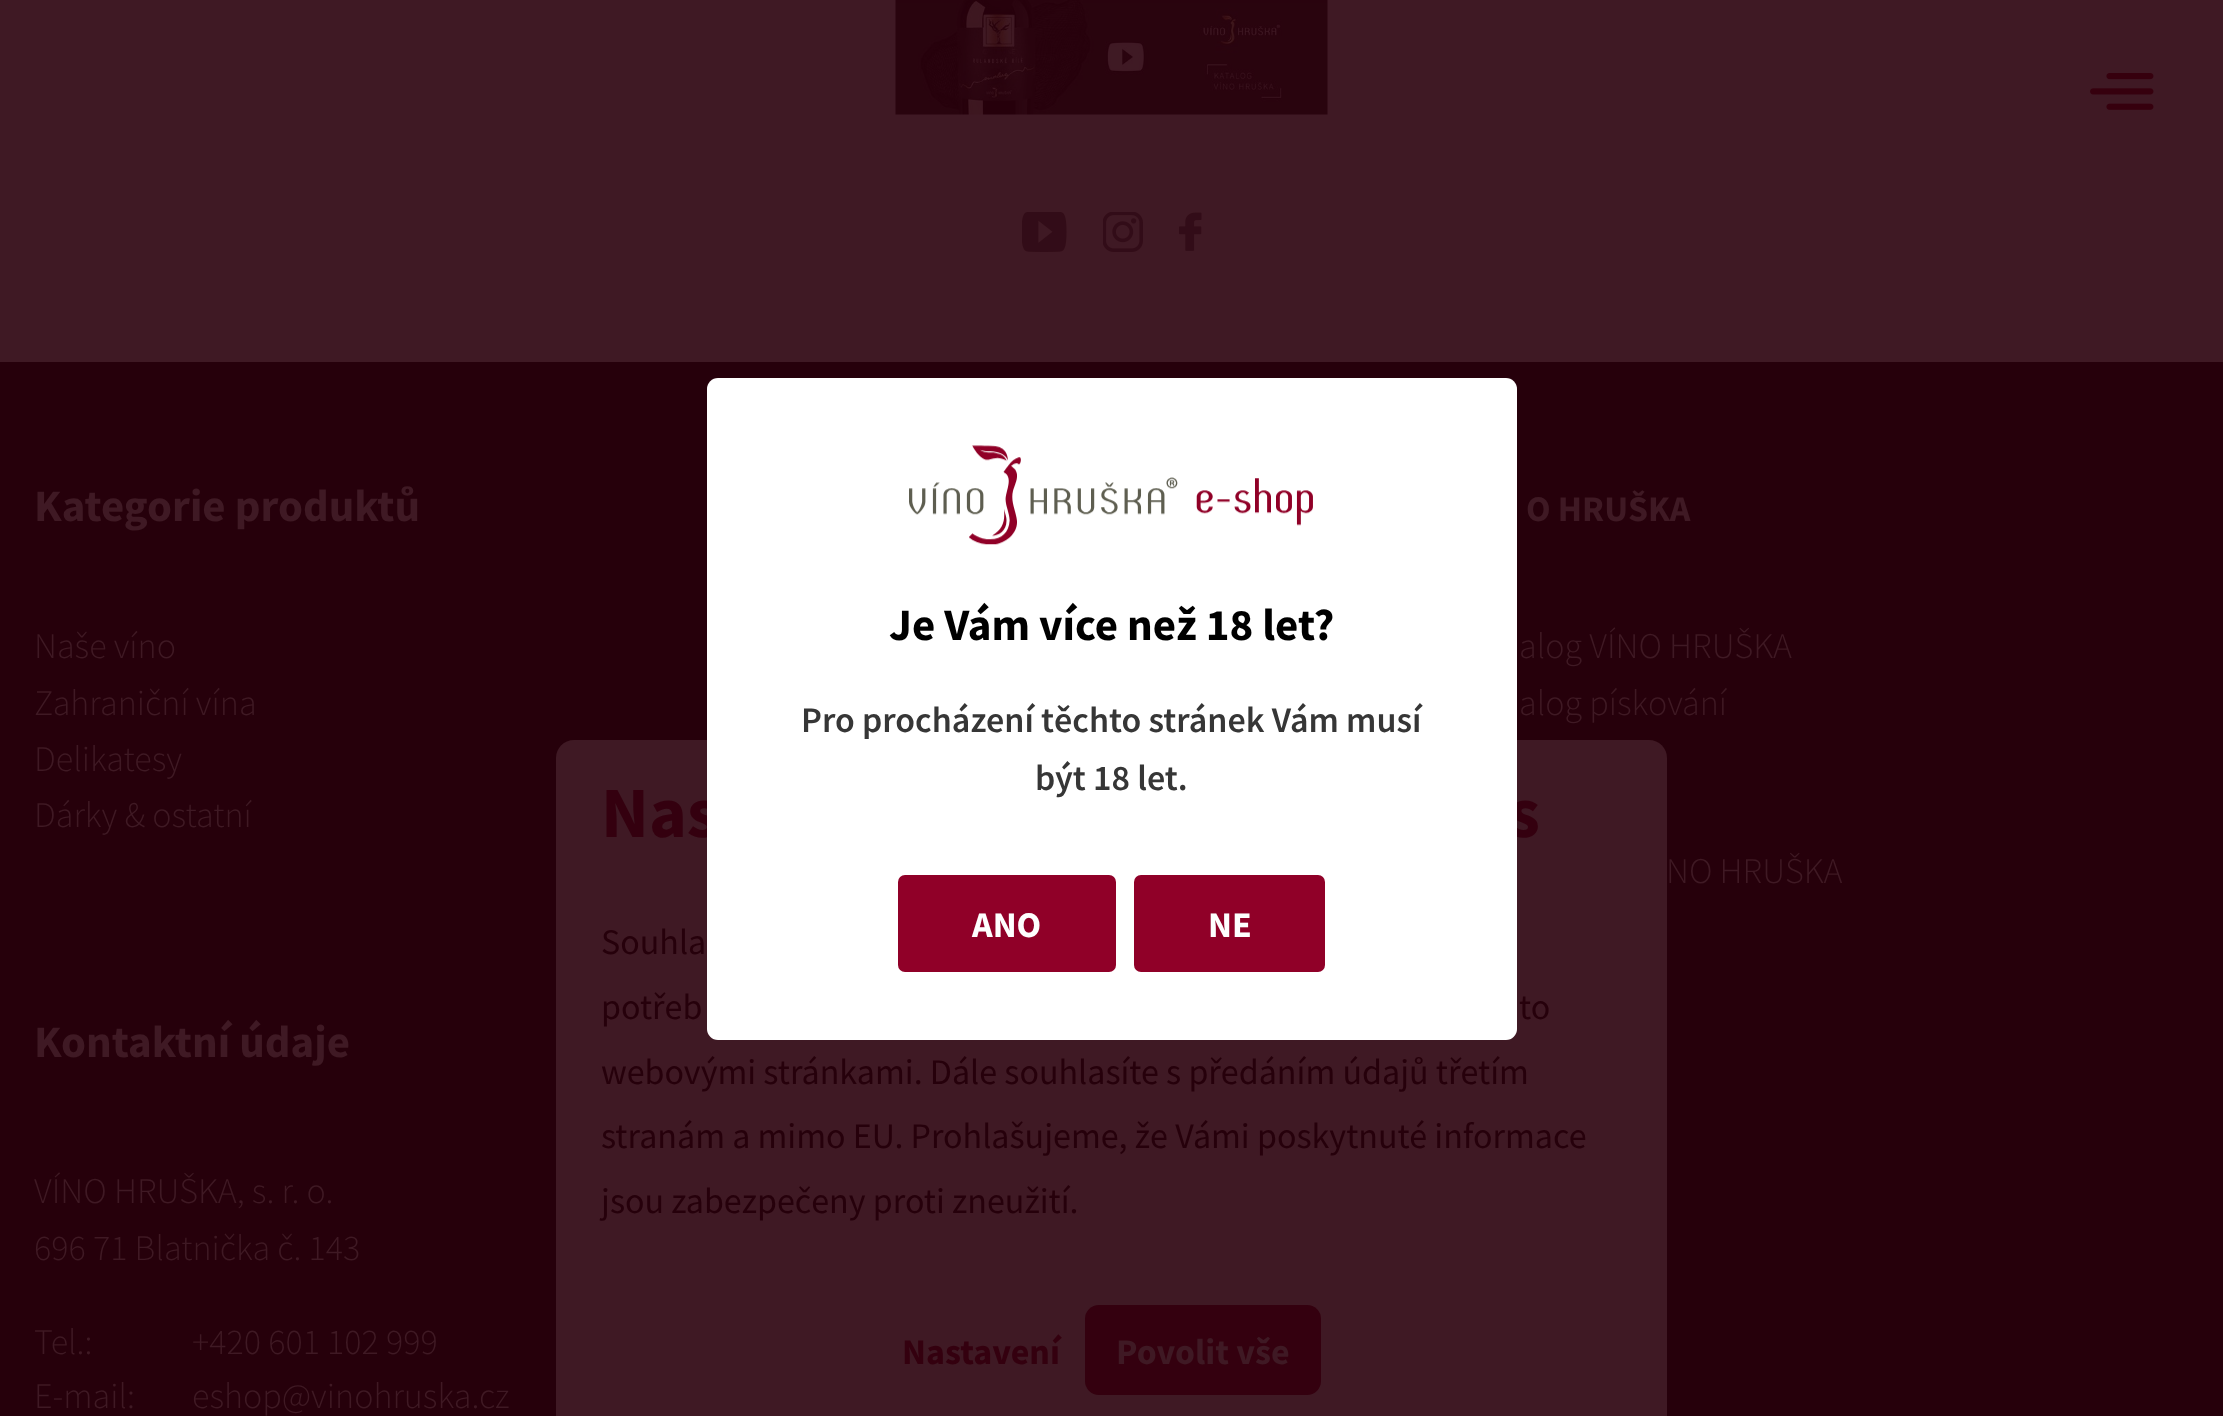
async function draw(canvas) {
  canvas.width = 2223;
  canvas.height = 1416;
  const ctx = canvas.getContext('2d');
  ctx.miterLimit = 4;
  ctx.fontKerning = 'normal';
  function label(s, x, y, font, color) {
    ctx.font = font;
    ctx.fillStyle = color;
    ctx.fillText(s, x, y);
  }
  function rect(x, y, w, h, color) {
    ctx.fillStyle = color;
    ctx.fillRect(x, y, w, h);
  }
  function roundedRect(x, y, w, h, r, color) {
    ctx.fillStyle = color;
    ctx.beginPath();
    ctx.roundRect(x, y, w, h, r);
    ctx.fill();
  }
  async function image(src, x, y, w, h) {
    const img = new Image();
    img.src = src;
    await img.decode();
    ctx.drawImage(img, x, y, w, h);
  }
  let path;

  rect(0, 0, 2223, 1416, '#3f1924');
  await image('assets/img1.png', 2090, 73, 64, 37);
  await image('assets/img2.png', 895, 0, 433, 115);
  await image('assets/img3.png', 1022, 212, 45, 40);
  await image('assets/img4.png', 1103, 212, 40, 40);
  await image('assets/img5.png', 1179, 212, 23, 39);
  rect(0, 362, 2223, 1054, '#26000b');
  label('Kategorie produktů', 34, 521, 'bold 45px Source Sans Pro', '#3f1924');
  label('Naše víno', 34, 658, '300 36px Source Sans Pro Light', '#3f1924');
  label('Zahraniční vína', 34, 715, '300 36px Source Sans Pro Light', '#3f1924');
  label('Delikatesy', 34, 771, '300 36px Source Sans Pro Light', '#3f1924');
  label('Dárky & ostatní', 34, 827, '300 36px Source Sans Pro Light', '#3f1924');
  label('O HRUŠKA', 1526, 521, 'bold 36px Source Sans Pro', '#3f1924');
  label('alog VÍNO HRUŠKA', 1519, 658, '300 36px Source Sans Pro Light', '#3f1924');
  label('alog pískování', 1519, 715, '300 36px Source Sans Pro Light', '#3f1924');
  label('NO HRUŠKA', 1666, 883, '300 36px Source Sans Pro Light', '#3f1924');
  label('Kontaktní údaje', 34, 1057, 'bold 45px Source Sans Pro', '#3f1924');
  label('VÍNO HRUŠKA, s. r. o.', 34, 1203, '300 36px Source Sans Pro Light', '#3f1924');
  label('696 71 Blatnička č. 143', 34, 1260, '300 36px Source Sans Pro Light', '#3f1924');
  label('Tel.:', 34, 1354, '300 36px Source Sans Pro Light', '#3f1924');
  label('+420 601 102 999', 192, 1354, '300 36px Source Sans Pro Light', '#3f1924');
  label('E-mail:', 34, 1408, '300 36px Source Sans Pro Light', '#3f1924');
  label('eshop@vinohruska.cz', 192, 1408, '300 36px Source Sans Pro Light', '#3f1924');
  path = new Path2D('M574 740H1649C1659 740 1667 748 1667 758V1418H556V758C556 748 564 740 574 740Z');
  ctx.fill(path);
  label('Nas', 601, 837, 'bold 72px Source Sans Pro', '#34000f');
  label('s', 1508, 837, 'bold 72px Source Sans Pro', '#34000f');
  roundedRect(707, 378, 810, 662, 11, '#fff');
  await image('assets/img6.png', 909, 445, 404, 100);
  label('Je Vám více než 18 let?', 889, 640, 'bold 45px Source Sans Pro', '#000');
  label('Pro procházení těchto stránek Vám musí', 801, 732, '600 36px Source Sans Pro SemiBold', '#363636');
  label('být 18 let.', 1035, 790, '600 36px Source Sans Pro SemiBold', '#363636');
  roundedRect(898, 875, 218, 97, 7, '#900028');
  label('ANO', 972, 937, 'bold 36px Source Sans Pro', '#fefefe');
  roundedRect(1134, 875, 191, 97, 7, '#900028');
  label('NE', 1208, 937, 'bold 36px Source Sans Pro', '#fefefe');
  label('Souhla', 601, 954, '36px Source Sans Pro', '#26000b');
  label('potřeb', 601, 1019, '36px Source Sans Pro', '#26000b');
  label('to', 1519, 1019, '36px Source Sans Pro', '#26000b');
  label('webovými stránkami. Dále souhlasíte s předáním údajů třetím', 601, 1084, '36px Source Sans Pro', '#26000b');
  label('stranám a mimo EU. Prohlašujeme, že Vámi poskytnuté informace', 601, 1148, '36px Source Sans Pro', '#26000b');
  label('jsou zabezpečeny proti zneužití.', 601, 1213, '36px Source Sans Pro', '#26000b');
  label('Nastavení', 902, 1364, 'bold 36px Source Sans Pro', '#34000f');
  roundedRect(1085, 1305, 236, 90, 14, '#34000f');
  label('Povolit vše', 1116, 1364, 'bold 36px Source Sans Pro', '#3f1924');
}

draw(document.querySelector('canvas'));
